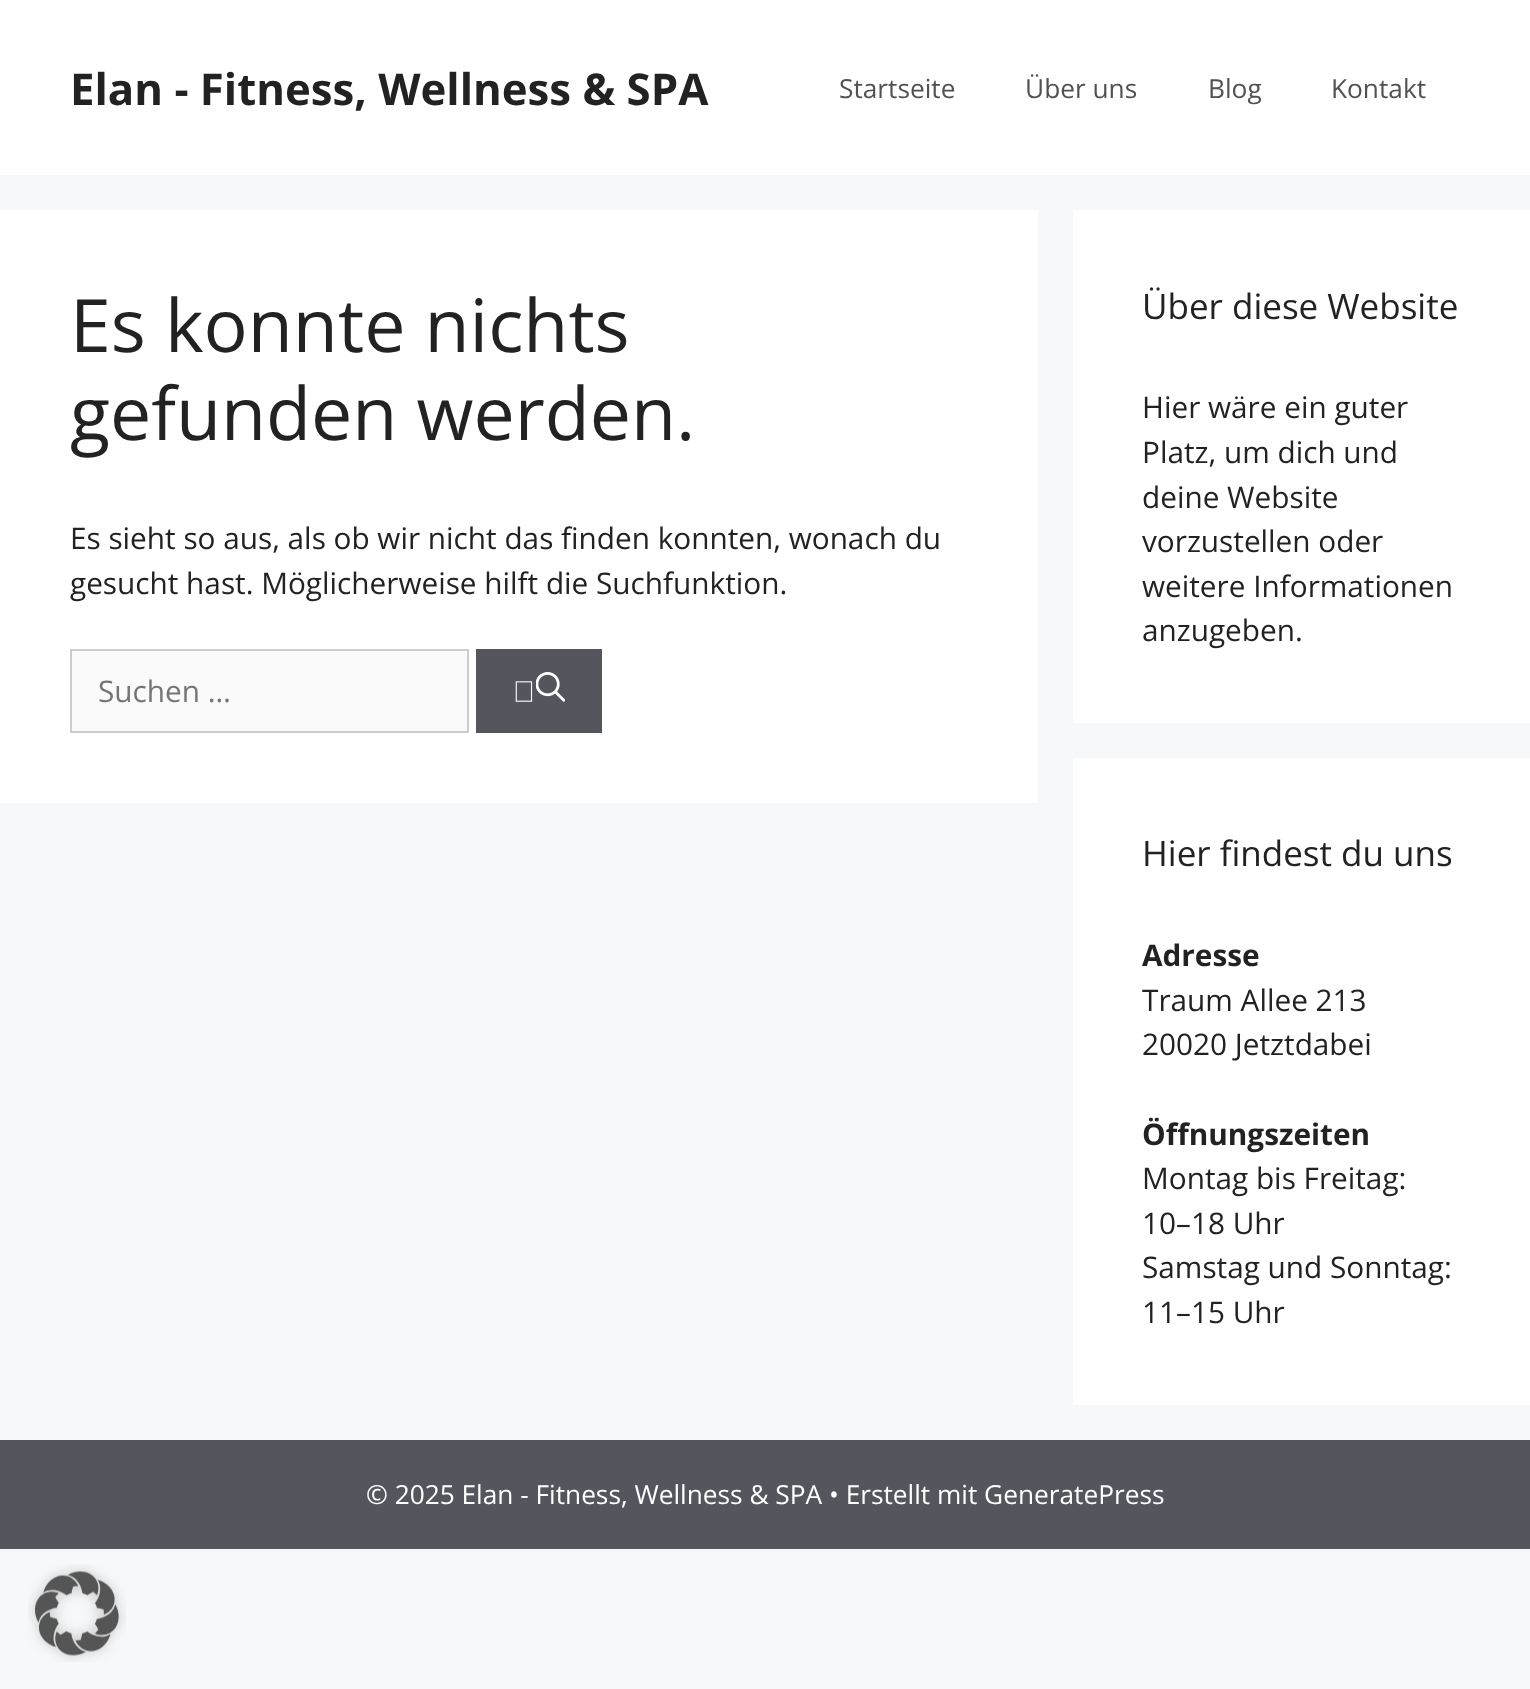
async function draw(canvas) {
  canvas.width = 1530;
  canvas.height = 1689;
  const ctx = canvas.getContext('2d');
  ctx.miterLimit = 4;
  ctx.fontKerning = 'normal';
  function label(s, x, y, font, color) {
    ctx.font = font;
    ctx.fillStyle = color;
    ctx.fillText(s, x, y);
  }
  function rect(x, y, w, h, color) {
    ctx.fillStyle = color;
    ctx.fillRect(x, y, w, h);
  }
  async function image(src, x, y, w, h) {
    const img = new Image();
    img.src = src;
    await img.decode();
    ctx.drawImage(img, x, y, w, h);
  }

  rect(0, 0, 1530, 1689, '#f7f8f9');
  rect(0, 0, 1530, 175, '#fff');
  label('Elan - Fitness, Wellness & SPA', 70, 105, 'bold 43.75px Open Sans', '#222');
  label('Startseite', 839, 98, '26.25px Open Sans', '#515151');
  label('Über uns', 1025, 98, '26.25px Open Sans', '#515151');
  label('Blog', 1208, 98, '26.25px Open Sans', '#515151');
  label('Kontakt', 1331, 98, '26.25px Open Sans', '#515151');
  rect(0, 210, 1038, 593, '#fff');
  label('Es konnte nichts', 70, 352, '73.5px Open Sans', '#222');
  label('gefunden werden.', 70, 440, '73.5px Open Sans', '#222');
  label('Es sieht so aus, als ob wir nicht das finden konnten, wonach du', 70, 549, '29.75px Open Sans', '#222');
  label('gesucht hast. Möglicherweise hilft die Suchfunktion.', 70, 594, '29.75px Open Sans', '#222');
  ctx.fillStyle = '#fafafa';
  ctx.beginPath();
  ctx.rect(71, 650, 397, 82);
  ctx.fill();
  ctx.strokeStyle = '#ccc';
  ctx.lineWidth = 2;
  ctx.stroke();
  label('Suchen …', 98, 702, '29.75px Open Sans', '#757575');
  rect(476, 649, 126, 84, '#55555e');
  await image('assets/img1.png', 515, 681, 18, 21);
  await image('assets/img2.png', 536, 672, 29, 30);
  rect(1073, 210, 457, 513, '#fff');
  label('Über diese Website', 1142, 319, '35px Open Sans', '#222');
  label('Hier wäre ein guter', 1142, 418, '29.75px Open Sans', '#222');
  label('Platz, um dich und', 1142, 463, '29.75px Open Sans', '#222');
  label('deine Website', 1142, 508, '29.75px Open Sans', '#222');
  label('vorzustellen oder', 1142, 552, '29.75px Open Sans', '#222');
  label('weitere Informationen', 1142, 597, '29.75px Open Sans', '#222');
  label('anzugeben.', 1142, 641, '29.75px Open Sans', '#222');
  rect(1073, 758, 457, 647, '#fff');
  label('Hier findest du uns', 1142, 866, '35px Open Sans', '#222');
  label('Adresse', 1142, 966, 'bold 29.75px Open Sans', '#222');
  label('Traum Allee 213', 1142, 1011, '29.75px Open Sans', '#222');
  label('20020 Jetztdabei', 1142, 1055, '29.75px Open Sans', '#222');
  label('Öffnungszeiten', 1142, 1145, 'bold 29.75px Open Sans', '#222');
  label('Montag bis Freitag:', 1142, 1189, '29.75px Open Sans', '#222');
  label('10–18 Uhr', 1142, 1234, '29.75px Open Sans', '#222');
  label('Samstag und Sonntag:', 1142, 1278, '29.75px Open Sans', '#222');
  label('11–15 Uhr', 1142, 1323, '29.75px Open Sans', '#222');
  rect(0, 1440, 1530, 109, '#55555e');
  label('© 2025 Elan - Fitness, Wellness & SPA • Erstellt mit GeneratePress', 366, 1504, '26.25px Open Sans', '#fff');
  await image('assets/img3.png', 28, 1564, 98, 98);
}

draw(document.querySelector('canvas'));
